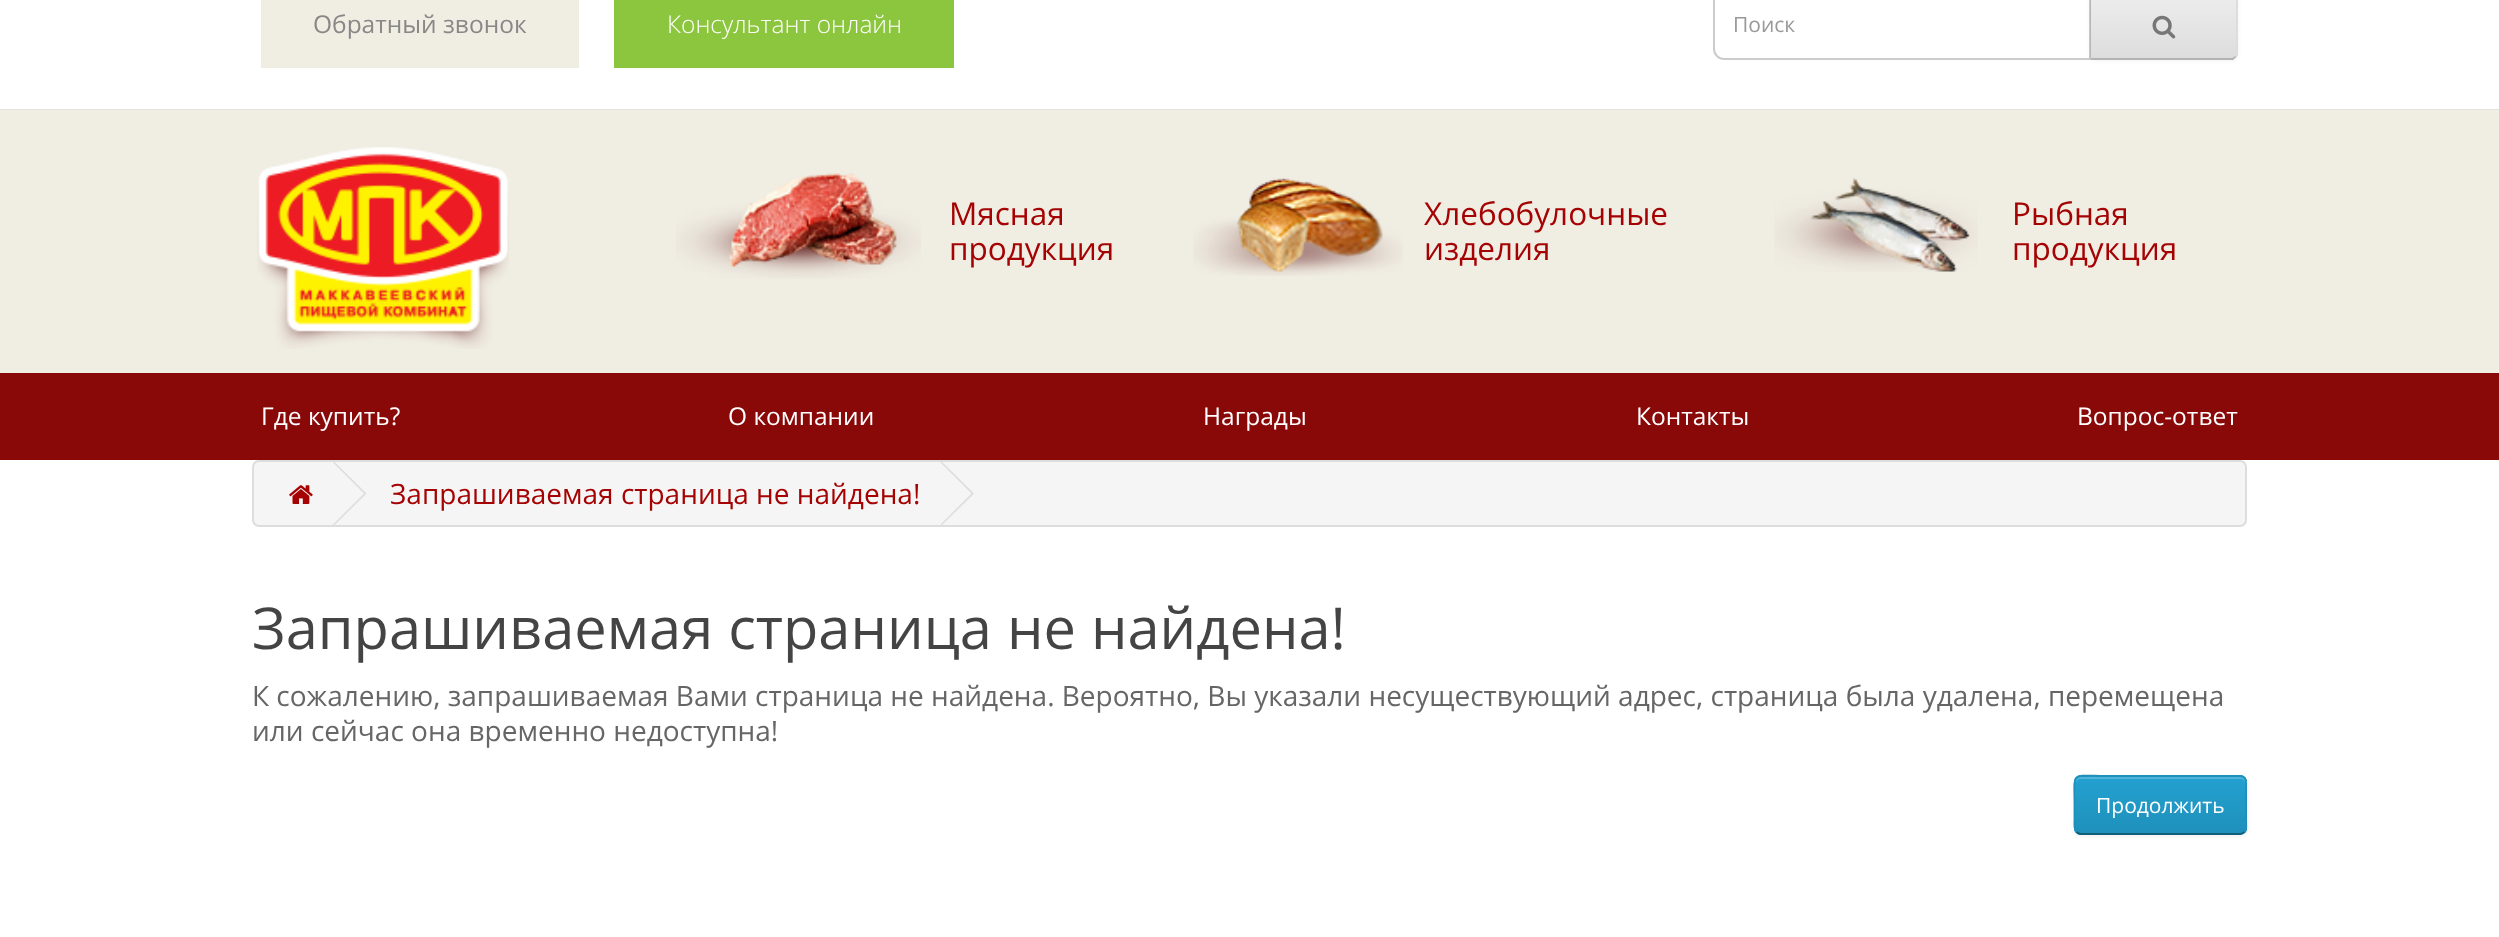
async function draw(canvas) {
  canvas.width = 2499;
  canvas.height = 937;
  const ctx = canvas.getContext('2d');
  ctx.miterLimit = 4;
  ctx.fontKerning = 'normal';
  function label(s, x, y, font, color) {
    ctx.font = font;
    ctx.fillStyle = color;
    ctx.fillText(s, x, y);
  }
  function rect(x, y, w, h, color) {
    ctx.fillStyle = color;
    ctx.fillRect(x, y, w, h);
  }
  function roundedRect(x, y, w, h, r, color) {
    ctx.fillStyle = color;
    ctx.beginPath();
    ctx.roundRect(x, y, w, h, r);
    ctx.fill();
  }
  async function image(src, x, y, w, h) {
    const img = new Image();
    img.src = src;
    await img.decode();
    ctx.drawImage(img, x, y, w, h);
  }
  let gradient, path;

  rect(0, 0, 2499, 937, '#fff');
  rect(0, 109, 2499, 1, '#e2e2e2');
  rect(261, 0, 318, 68, '#f0ede3');
  label('Обратный звонок', 313, 33, '24.5px Open Sans', '#888');
  rect(614, 0, 340, 68, '#8cc63f');
  label('Консультант онлайн', 667, 33, '300 24.5px Open Sans', '#fff');
  path = new Path2D('M1724-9H2090V59H1724C1718.5 59 1714 54.5 1714 49V1C1714-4.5 1718.5-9 1724-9Z');
  ctx.strokeStyle = '#ccc';
  ctx.lineWidth = 2;
  ctx.stroke(path);
  label('Поиск', 1733, 32, '21px Open Sans', '#999');
  ctx.fillStyle = '#0000000d';
  ctx.filter = 'blur(2px)';
  ctx.beginPath();
  ctx.roundRect(2090, -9, 148, 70, 7);
  ctx.fill();
  ctx.filter = 'none';
  ctx.fillStyle = '#e7e7e7';
  path = new Path2D('M2090-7H2231C2235-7 2238-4 2238 0V53C2238 57 2235 60 2231 60H2090Z');
  ctx.fill(path);
  ctx.save();
  path = new Path2D('M2090-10H2231C2235-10 2238-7 2238-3V53C2238 57 2235 60 2231 60H2090Z');
  ctx.clip(path);
  gradient = ctx.createLinearGradient(2164, -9, 2164, 58);
  gradient.addColorStop(0, '#eee');
  gradient.addColorStop(1, '#ddd');
  ctx.fillStyle = gradient;
  ctx.fillRect(2091, 0, 147, 58);
  ctx.restore();
  ctx.fillStyle = '#ddd';
  path = new Path2D('M2236-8C2237-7 2238-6 2238-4V52C2238 54 2237 56 2236 57L2235 56C2236 55 2236 53 2236 52V-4C2236-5 2236-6 2235-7Z');
  ctx.fill(path);
  ctx.fillStyle = '#b3b3b3';
  path = new Path2D('M2090 60L2091 58H2231C2233 58 2234 57 2235 56L2236 57L2233 60Z');
  ctx.fill(path);
  ctx.fillStyle = '#b7b7b7';
  path = new Path2D('M2091-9L2090-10V59L2091 58Z');
  ctx.fill(path);
  await image('assets/img1.png', 2152, 15, 24, 24);
  rect(0, 110, 2499, 263, '#f0ede3');
  await image('assets/img2.png', 257, 147, 252, 202);
  await image('assets/img3.png', 676, 173, 245, 106);
  label('Мясная', 949, 225, '31.5px Open Sans', '#a50303');
  label('продукция', 949, 260, '31.5px Open Sans', '#a50303');
  await image('assets/img4.png', 1193, 178, 210, 98);
  label('Хлебобулочные', 1424, 225, '31.5px Open Sans', '#a50303');
  label('изделия', 1424, 260, '31.5px Open Sans', '#a50303');
  await image('assets/img5.png', 1774, 178, 204, 94);
  label('Рыбная', 2012, 225, '31.5px Open Sans', '#a50303');
  label('продукция', 2012, 260, '31.5px Open Sans', '#a50303');
  rect(0, 373, 2499, 87, '#890808');
  label('Где купить?', 261, 425, '24.5px Open Sans', '#fff');
  label('О компании', 728, 425, '24.5px Open Sans', '#fff');
  label('Награды', 1203, 425, '24.5px Open Sans', '#fff');
  label('Контакты', 1636, 425, '24.5px Open Sans', '#fff');
  label('Вопрос-ответ', 2077, 425, '24.5px Open Sans', '#fff');
  ctx.fillStyle = '#f5f5f5';
  ctx.beginPath();
  ctx.roundRect(253, 461, 1993, 65, 6);
  ctx.fill();
  ctx.strokeStyle = '#ddd';
  ctx.stroke();
  await image('assets/img6.png', 289, 485, 24, 19);
  ctx.fillStyle = '#ddd';
  path = new Path2D('M333 462.5L334 461.5L366.5 493.5L365 494.5Z');
  ctx.fill(path);
  path = new Path2D('M333 524.5L365 492.5L366.5 493.5L334 525.5Z');
  ctx.fill(path);
  label('Запрашиваемая страница не найдена!', 390, 504, '28px Open Sans', '#a50303');
  ctx.fillStyle = '#ddd';
  path = new Path2D('M940.5 462.5L941.5 461.5L974 493.5L972.5 494.5Z');
  ctx.fill(path);
  path = new Path2D('M940.5 524.5L972.5 492.5L974 493.5L941.5 525.5Z');
  ctx.fill(path);
  label('Запрашиваемая страница не найдена!', 252, 649, '57.75px Open Sans', '#444');
  label('К сожалению, запрашиваемая Вами страница не найдена. Вероятно, Вы указали несуществующий адрес, страница была удалена, перемещена', 252, 706, '28px Open Sans', '#666');
  label('или сейчас она временно недоступна!', 252, 741, '28px Open Sans', '#666');
  ctx.fillStyle = '#0000000d';
  ctx.filter = 'blur(2px)';
  ctx.beginPath();
  ctx.roundRect(2074, 777, 173, 60, 7);
  ctx.fill();
  ctx.filter = 'none';
  roundedRect(2074, 775, 173, 60, 7, '#229ac8');
  ctx.save();
  ctx.beginPath();
  ctx.roundRect(2074, 775, 173, 60, 7);
  ctx.clip();
  gradient = ctx.createLinearGradient(2160, 777, 2160, 833);
  gradient.addColorStop(0, '#23a1d1');
  gradient.addColorStop(1, '#1f90bb');
  ctx.fillStyle = gradient;
  ctx.fillRect(2074, 777, 173, 56);
  ctx.restore();
  ctx.fillStyle = '#4fb4da';
  path = new Path2D('M2081 779H2240C2243 779 2245 781 2245 784V782C2245 779 2243 777 2240 777H2081C2078 777 2076 779 2076 782V784C2076 781 2078 779 2081 779Z');
  ctx.fill(path);
  path = new Path2D('M2244.5 832C2243 833 2241.5 834 2240 834H2081C2079 834 2077.5 833 2076.5 832');
  ctx.strokeStyle = '#145e7a';
  ctx.lineWidth = 1.8;
  ctx.stroke(path);
  path = new Path2D('M2076.5 832C2073.5 829 2074.5 823.5 2074.5 820V805C2074.5 770 2069.5 776 2107.5 776H2240C2247.5 776 2246 785 2246 790V820C2246 823.5 2247.5 829 2244.5 832');
  ctx.strokeStyle = '#1f90bb';
  ctx.stroke(path);
  label('Продолжить', 2096, 813, '21px Open Sans', '#fff');
}

draw(document.querySelector('canvas'));
